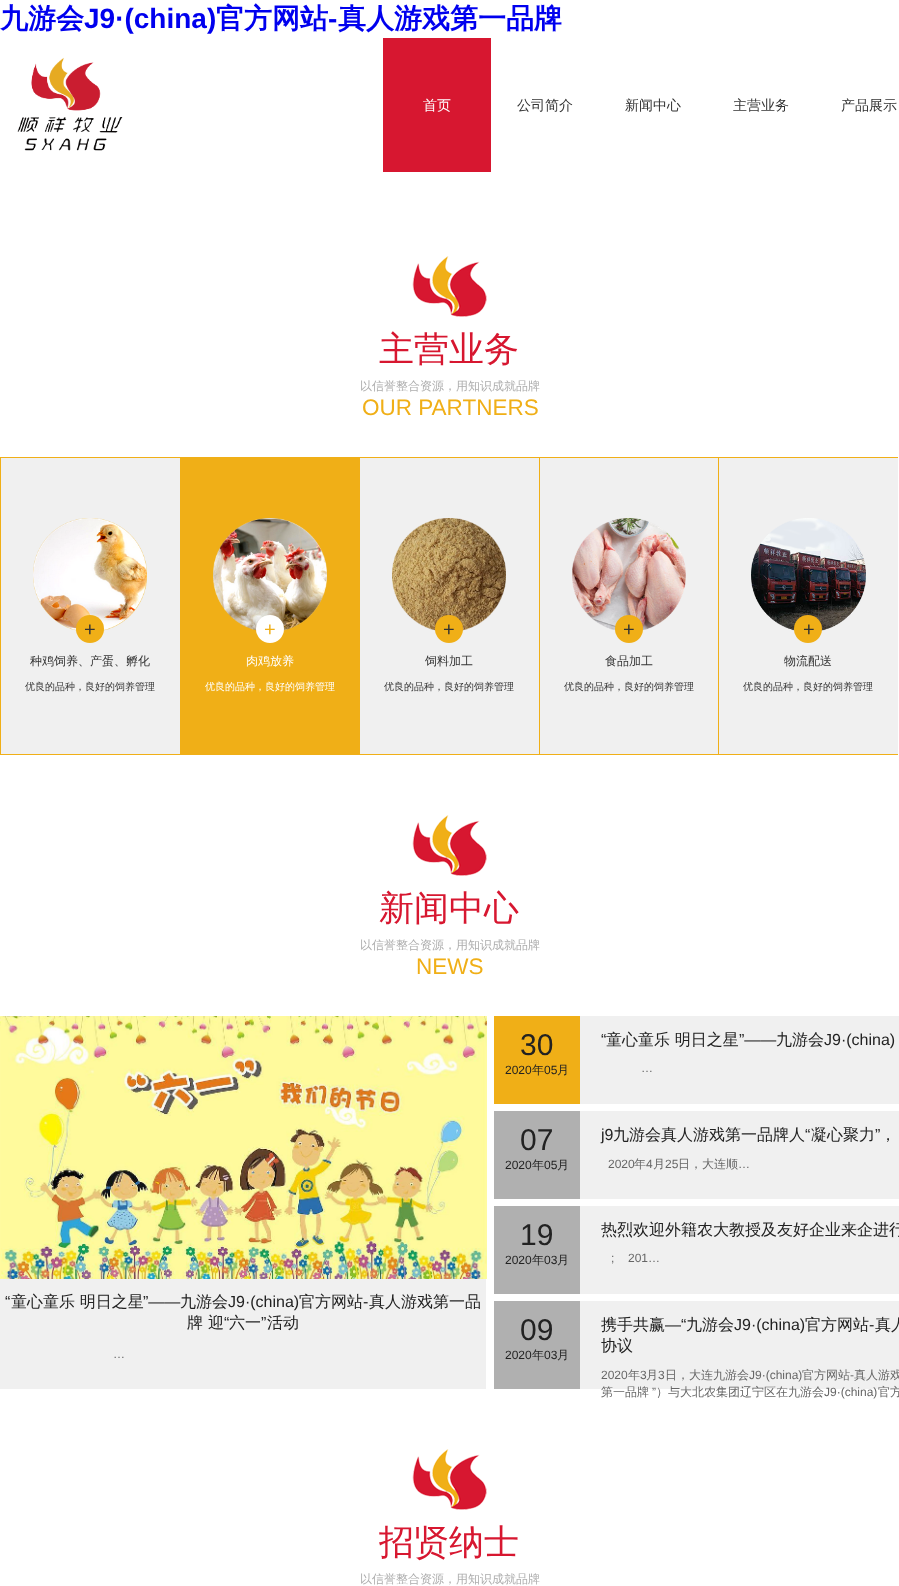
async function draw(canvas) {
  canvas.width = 899;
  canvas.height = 1586;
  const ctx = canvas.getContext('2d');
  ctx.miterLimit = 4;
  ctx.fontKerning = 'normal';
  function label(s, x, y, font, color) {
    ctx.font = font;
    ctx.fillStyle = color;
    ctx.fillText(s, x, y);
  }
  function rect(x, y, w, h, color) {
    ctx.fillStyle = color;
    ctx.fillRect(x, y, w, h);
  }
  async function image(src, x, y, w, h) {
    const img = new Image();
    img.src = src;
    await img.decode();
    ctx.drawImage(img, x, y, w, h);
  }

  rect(0, 0, 899, 1586, '#fff');
  label('九游会', 0, 28, 'bold 28px WenQuanYi Zen Hei', '#00e');
  label('J9·(china)', 84, 28, 'bold 28px Liberation Sans', '#00e');
  label('官方网站', 216, 28, 'bold 28px WenQuanYi Zen Hei', '#00e');
  label('-', 328, 28, 'bold 28px Liberation Sans', '#00e');
  label('真人游戏第一品牌', 338, 28, 'bold 28px WenQuanYi Zen Hei', '#00e');
  await image('assets/img1.png', 17, 57, 106, 94);
  rect(383, 38, 108, 134, '#d71730');
  label('首页', 423, 110, '500 14px WenQuanYi Zen Hei', '#fff');
  label('公司简介', 517, 110, '500 14px WenQuanYi Zen Hei', '#333');
  label('新闻中心', 625, 110, '500 14px WenQuanYi Zen Hei', '#333');
  label('主营业务', 733, 110, '500 14px WenQuanYi Zen Hei', '#333');
  label('产品展示', 841, 110, '500 14px WenQuanYi Zen Hei', '#333');
  await image('assets/img2.png', 412, 256, 75, 61);
  label('主营业务', 379, 361, '500 35px WenQuanYi Zen Hei', '#d71730');
  label('以信誉整合资源，用知识成就品牌', 360, 390, '500 12px WenQuanYi Zen Hei', '#adadad');
  label('OUR PARTNERS', 362, 415, '22.5px Liberation Sans', '#f0af17');
  rect(1, 458, 179, 296, '#f0f0f0');
  rect(0, 457, 180, 1, '#f0af17');
  rect(0, 754, 180, 1, '#f0af17');
  rect(0, 457, 1, 298, '#f0af17');
  await image('assets/img3.png', 33, 518, 114, 113);
  ctx.beginPath();
  ctx.arc(90, 629, 14, 0, 2 * Math.PI);
  ctx.fill();
  label('+', 84, 636, '20px Liberation Sans', '#333');
  label('种鸡饲养、产蛋、孵化', 30, 665, '500 12px WenQuanYi Zen Hei', '#333');
  label('优良的品种，良好的饲养管理', 25, 690, '500 10px WenQuanYi Zen Hei', '#333');
  rect(180, 457, 179, 298, '#f0af17');
  await image('assets/img4.png', 213, 518, 114, 113);
  ctx.fillStyle = '#fff';
  ctx.beginPath();
  ctx.arc(270, 629, 14, 0, 2 * Math.PI);
  ctx.fill();
  label('+', 264, 636, '20px Liberation Sans', '#f0af17');
  label('肉鸡放养', 246, 665, '500 12px WenQuanYi Zen Hei', '#fff');
  label('优良的品种，良好的饲养管理', 205, 690, '500 10px WenQuanYi Zen Hei', '#fff');
  rect(360, 458, 179, 296, '#f0f0f0');
  rect(359, 457, 539, 1, '#f0af17');
  rect(359, 754, 539, 1, '#f0af17');
  rect(359, 457, 1, 298, '#f0af17');
  await image('assets/img5.png', 392, 518, 114, 113);
  ctx.beginPath();
  ctx.arc(449, 629, 14, 0, 2 * Math.PI);
  ctx.fill();
  label('+', 443, 636, '20px Liberation Sans', '#333');
  label('饲料加工', 425, 665, '500 12px WenQuanYi Zen Hei', '#333');
  label('优良的品种，良好的饲养管理', 384, 690, '500 10px WenQuanYi Zen Hei', '#333');
  rect(540, 458, 178, 296, '#f0f0f0');
  rect(539, 457, 1, 298, '#f0af17');
  await image('assets/img6.png', 572, 518, 114, 113);
  ctx.beginPath();
  ctx.arc(629, 629, 14, 0, 2 * Math.PI);
  ctx.fill();
  label('+', 623, 636, '20px Liberation Sans', '#333');
  label('食品加工', 605, 665, '500 12px WenQuanYi Zen Hei', '#333');
  label('优良的品种，良好的饲养管理', 564, 690, '500 10px WenQuanYi Zen Hei', '#333');
  rect(719, 458, 179, 296, '#f0f0f0');
  rect(718, 457, 1, 298, '#f0af17');
  await image('assets/img7.png', 751, 518, 115, 113);
  ctx.beginPath();
  ctx.arc(808, 629, 14, 0, 2 * Math.PI);
  ctx.fill();
  label('+', 803, 636, '20px Liberation Sans', '#333');
  label('物流配送', 784, 665, '500 12px WenQuanYi Zen Hei', '#333');
  label('优良的品种，良好的饲养管理', 743, 690, '500 10px WenQuanYi Zen Hei', '#333');
  await image('assets/img2.png', 412, 815, 75, 61);
  label('新闻中心', 379, 920, '500 35px WenQuanYi Zen Hei', '#d71730');
  label('以信誉整合资源，用知识成就品牌', 360, 949, '500 12px WenQuanYi Zen Hei', '#adadad');
  label('NEWS', 416, 974, '22.5px Liberation Sans', '#f0af17');
  await image('assets/img8.png', 0, 1016, 487, 263);
  rect(0, 1279, 486, 110, '#f0f0f0');
  label('“', 5, 1307, '16px Liberation Sans', '#222');
  label('童心童乐 明日之星', 11, 1307, '500 16px WenQuanYi Zen Hei', '#222');
  label('”——', 143, 1307, '16px Liberation Sans', '#222');
  label('九游会', 180, 1307, '500 16px WenQuanYi Zen Hei', '#222');
  label('J9·(china)', 228, 1307, '16px Liberation Sans', '#222');
  label('官方网站', 299, 1307, '500 16px WenQuanYi Zen Hei', '#222');
  label('-', 363, 1307, '16px Liberation Sans', '#222');
  label('真人游戏第一品', 369, 1307, '500 16px WenQuanYi Zen Hei', '#222');
  label('牌', 187, 1328, '500 16px WenQuanYi Zen Hei', '#222');
  label('迎', 208, 1328, '500 16px WenQuanYi Zen Hei', '#222');
  label('“', 224, 1328, '16px Liberation Sans', '#222');
  label('六一', 229, 1328, '500 16px WenQuanYi Zen Hei', '#222');
  label('”', 261, 1328, '16px Liberation Sans', '#222');
  label('活动', 267, 1328, '500 16px WenQuanYi Zen Hei', '#222');
  label('…', 113, 1358, '12px Liberation Sans', '#666');
  rect(494, 1016, 86, 88, '#f0af17');
  label('30', 520, 1055, '30px Liberation Sans', '#222');
  label('2020', 505, 1074, '12px Liberation Sans', '#222');
  label('年', 532, 1074, '500 12px WenQuanYi Zen Hei', '#222');
  label('05', 544, 1074, '12px Liberation Sans', '#222');
  label('月', 557, 1074, '500 12px WenQuanYi Zen Hei', '#222');
  rect(580, 1016, 319, 88, '#f0f0f0');
  label('“', 601, 1045, '16px Liberation Sans', '#222');
  label('童心童乐 明日之星', 606, 1045, '500 16px WenQuanYi Zen Hei', '#222');
  label('”——', 739, 1045, '16px Liberation Sans', '#222');
  label('九游会', 776, 1045, '500 16px WenQuanYi Zen Hei', '#222');
  label('J9·(china)', 824, 1045, '16px Liberation Sans', '#222');
  label('…', 641, 1072, '12px Liberation Sans', '#666');
  rect(494, 1111, 86, 88, '#b0b0b0');
  label('07', 520, 1150, '30px Liberation Sans', '#222');
  label('2020', 505, 1169, '12px Liberation Sans', '#222');
  label('年', 532, 1169, '500 12px WenQuanYi Zen Hei', '#222');
  label('05', 544, 1169, '12px Liberation Sans', '#222');
  label('月', 557, 1169, '500 12px WenQuanYi Zen Hei', '#222');
  rect(580, 1111, 319, 88, '#f0f0f0');
  label('j9', 601, 1140, '16px Liberation Sans', '#222');
  label('九游会真人游戏第一品牌人', 613, 1140, '500 16px WenQuanYi Zen Hei', '#222');
  label('“', 805, 1140, '16px Liberation Sans', '#222');
  label('凝心聚力', 811, 1140, '500 16px WenQuanYi Zen Hei', '#222');
  label('”', 875, 1140, '16px Liberation Sans', '#222');
  label('，', 880, 1140, '500 16px WenQuanYi Zen Hei', '#222');
  label('2020', 608, 1168, '12px Liberation Sans', '#666');
  label('年', 634, 1168, '500 12px WenQuanYi Zen Hei', '#666');
  label('4', 646, 1168, '12px Liberation Sans', '#666');
  label('月', 653, 1168, '500 12px WenQuanYi Zen Hei', '#666');
  label('25', 665, 1168, '12px Liberation Sans', '#666');
  label('日，大连顺', 678, 1168, '500 12px WenQuanYi Zen Hei', '#666');
  label('…', 738, 1168, '12px Liberation Sans', '#666');
  rect(494, 1206, 86, 88, '#b0b0b0');
  label('19', 520, 1245, '30px Liberation Sans', '#222');
  label('2020', 505, 1264, '12px Liberation Sans', '#222');
  label('年', 532, 1264, '500 12px WenQuanYi Zen Hei', '#222');
  label('03', 544, 1264, '12px Liberation Sans', '#222');
  label('月', 557, 1264, '500 12px WenQuanYi Zen Hei', '#222');
  rect(580, 1206, 319, 88, '#f0f0f0');
  label('热烈欢迎外籍农大教授及友好企业来企进行', 601, 1235, '500 16px WenQuanYi Zen Hei', '#222');
  label(';', 611, 1262, '12px Liberation Sans', '#666');
  label('201…', 628, 1262, '12px Liberation Sans', '#666');
  rect(494, 1301, 86, 88, '#b0b0b0');
  label('09', 520, 1340, '30px Liberation Sans', '#222');
  label('2020', 505, 1359, '12px Liberation Sans', '#222');
  label('年', 532, 1359, '500 12px WenQuanYi Zen Hei', '#222');
  label('03', 544, 1359, '12px Liberation Sans', '#222');
  label('月', 557, 1359, '500 12px WenQuanYi Zen Hei', '#222');
  rect(580, 1301, 319, 88, '#f0f0f0');
  label('携手共赢', 601, 1330, '500 16px WenQuanYi Zen Hei', '#222');
  label('—“', 665, 1330, '16px Liberation Sans', '#222');
  label('九游会', 686, 1330, '500 16px WenQuanYi Zen Hei', '#222');
  label('J9·(china)', 734, 1330, '16px Liberation Sans', '#222');
  label('官方网站', 805, 1330, '500 16px WenQuanYi Zen Hei', '#222');
  label('-', 869, 1330, '16px Liberation Sans', '#222');
  label('真人', 875, 1330, '500 16px WenQuanYi Zen Hei', '#222');
  label('协议', 601, 1351, '500 16px WenQuanYi Zen Hei', '#222');
  label('2020', 601, 1379, '12px Liberation Sans', '#666');
  label('年', 628, 1379, '500 12px WenQuanYi Zen Hei', '#666');
  label('3', 640, 1379, '12px Liberation Sans', '#666');
  label('月', 646, 1379, '500 12px WenQuanYi Zen Hei', '#666');
  label('3', 658, 1379, '12px Liberation Sans', '#666');
  label('日，大连九游会', 665, 1379, '500 12px WenQuanYi Zen Hei', '#666');
  label('J9·(china)', 749, 1379, '12px Liberation Sans', '#666');
  label('官方网站', 802, 1379, '500 12px WenQuanYi Zen Hei', '#666');
  label('-', 850, 1379, '12px Liberation Sans', '#666');
  label('真人游戏', 854, 1379, '500 12px WenQuanYi Zen Hei', '#666');
  label('第一品牌', 601, 1396, '500 12px WenQuanYi Zen Hei', '#666');
  label('”', 652, 1396, '12px Liberation Sans', '#666');
  label('）与大北农集团辽宁区在九游会', 656, 1396, '500 12px WenQuanYi Zen Hei', '#666');
  label('J9·(china)', 824, 1396, '12px Liberation Sans', '#666');
  label('官方', 878, 1396, '500 12px WenQuanYi Zen Hei', '#666');
  await image('assets/img2.png', 412, 1449, 75, 61);
  label('招贤纳士', 379, 1554, '500 35px WenQuanYi Zen Hei', '#d71730');
  label('以信誉整合资源，用知识成就品牌', 360, 1583, '500 12px WenQuanYi Zen Hei', '#adadad');
}

draw(document.querySelector('canvas'));
